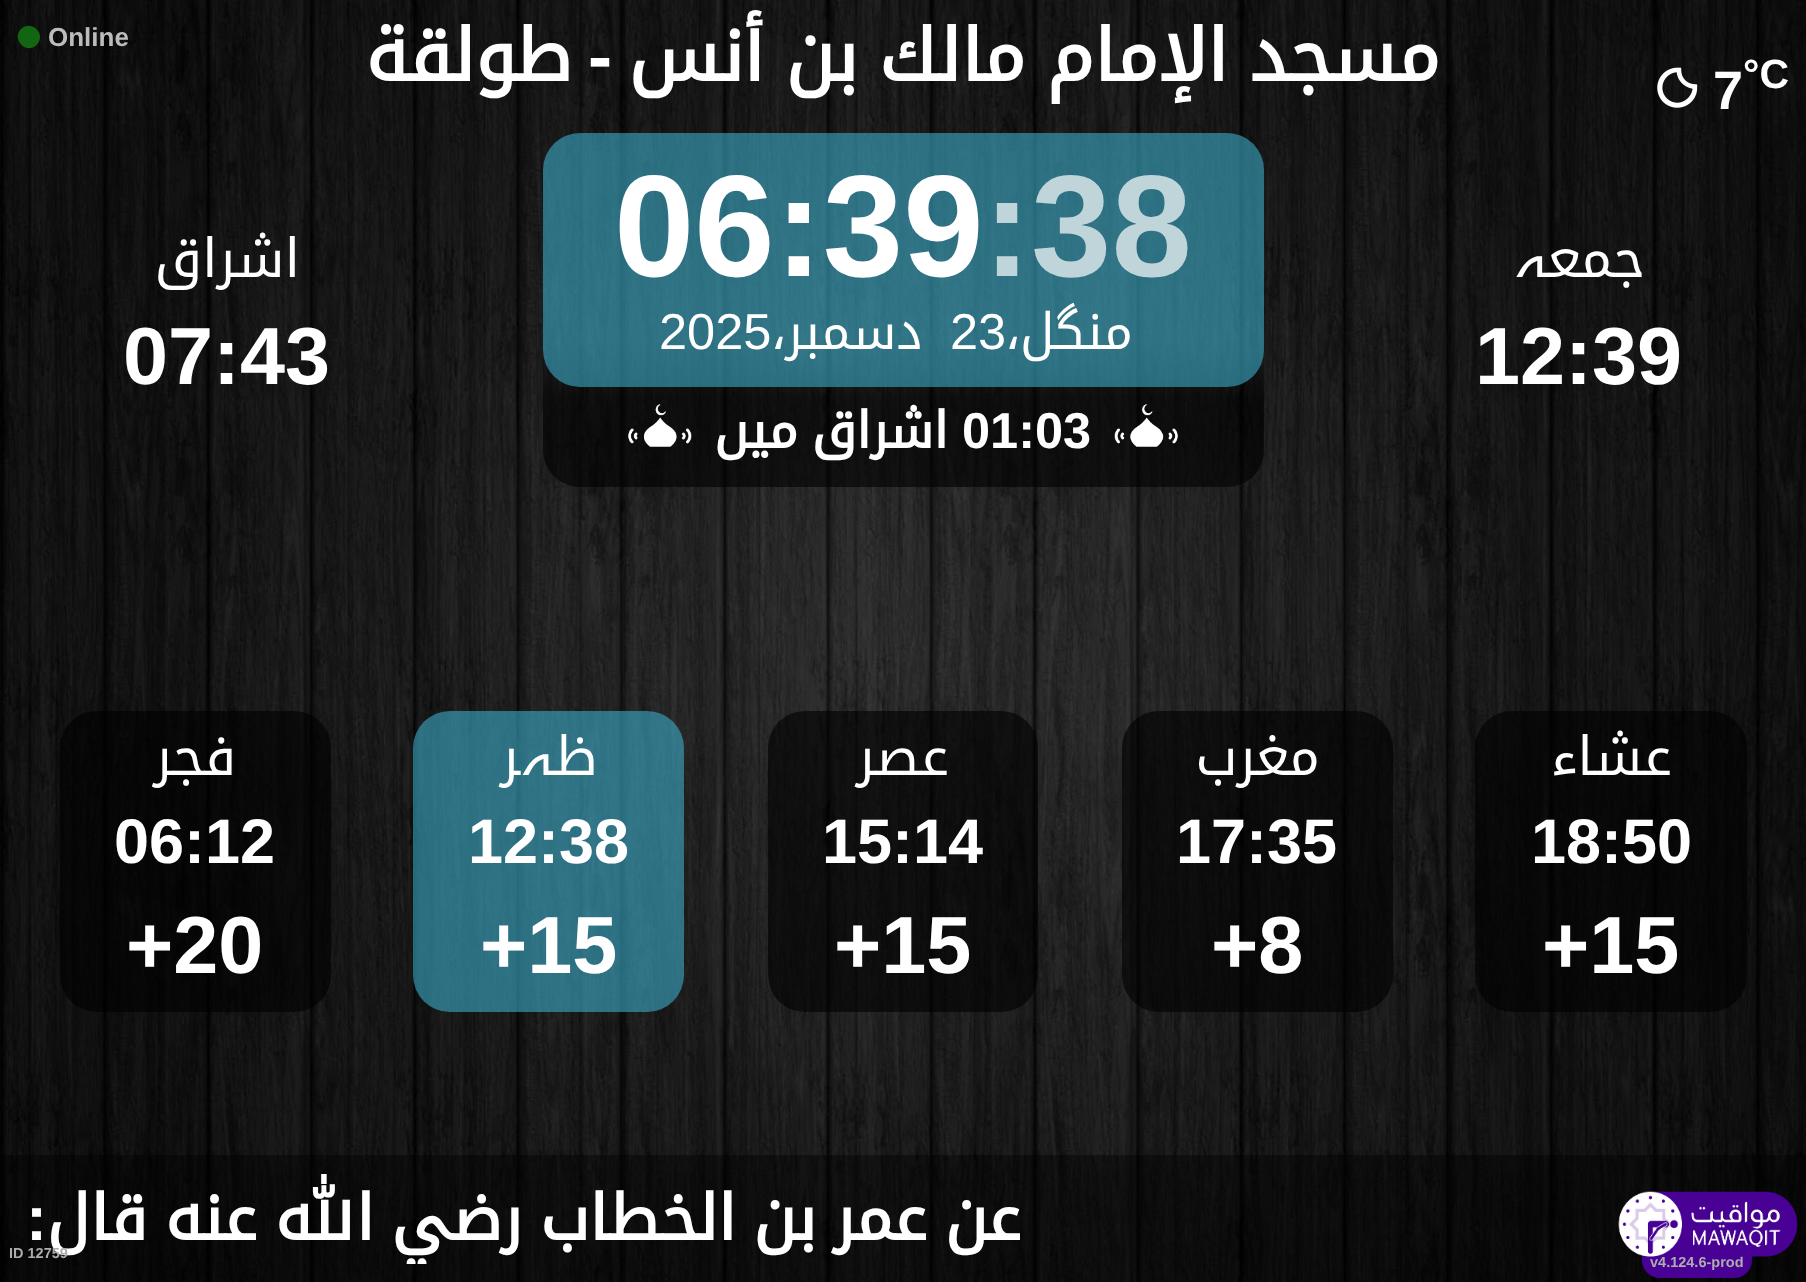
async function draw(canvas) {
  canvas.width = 1806;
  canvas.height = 1282;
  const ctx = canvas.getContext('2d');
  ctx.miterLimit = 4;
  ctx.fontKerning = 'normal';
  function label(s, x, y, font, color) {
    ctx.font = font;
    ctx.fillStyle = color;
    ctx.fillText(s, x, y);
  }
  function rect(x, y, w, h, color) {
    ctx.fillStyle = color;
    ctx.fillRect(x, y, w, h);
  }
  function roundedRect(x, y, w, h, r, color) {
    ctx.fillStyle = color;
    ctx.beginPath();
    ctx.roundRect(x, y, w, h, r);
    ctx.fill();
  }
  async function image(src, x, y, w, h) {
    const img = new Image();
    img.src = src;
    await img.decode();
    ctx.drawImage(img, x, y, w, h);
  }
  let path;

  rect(0, 0, 1806, 1282, '#fff');
  await image('assets/img1.png', 0, 0, 1806, 1282);
  ctx.wordSpacing = '-3px';
  ctx.direction = 'rtl';
  label('مسجد الإمام مالك بن أنس', 1440, 81, 'bold 72.25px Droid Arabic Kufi', '#fff');
  ctx.wordSpacing = '0px';
  label('-', 612, 81, 'bold 72.25px Liberation Sans', '#fff');
  label('طولقة', 571, 81, 'bold 72.25px Droid Arabic Kufi', '#fff');
  ctx.direction = 'ltr';
  label('Online', 48, 46, 'bold 26px Liberation Sans', '#bdbbbb');
  ctx.fillStyle = '#126611';
  path = new Path2D('M21 29C31.5 19 47 34.5 36.5 45C26.5 55 11 39.5 21 29Z');
  ctx.fill(path);
  label('°C', 1743, 88, 'bold 41px Liberation Sans', '#fff');
  label('7', 1713, 109, 'bold 54px Liberation Sans', '#fff');
  await image('assets/img2.png', 1657, 67, 41, 41);
  ctx.direction = 'rtl';
  label('جمعہ', 1645, 277, '54px Droid Arabic Kufi', '#fff');
  ctx.direction = 'ltr';
  label('12:39', 1475, 384, 'bold 81px Liberation Sans', '#fff');
  roundedRect(543, 133, 721, 254, 37, '#3babc999');
  label(':38', 983, 276, 'bold 144.5px Liberation Sans', '#c0d5da');
  label('06:39', 614, 276, 'bold 144.5px Liberation Sans', '#fff');
  ctx.direction = 'rtl';
  label('منگل،', 1133, 349, '50.5px Droid Arabic Kufi', '#fff');
  ctx.direction = 'ltr';
  label('23', 950, 349, '50.5px Liberation Sans', '#fff');
  ctx.direction = 'rtl';
  label('دسمبر،', 922, 349, '50.5px Droid Arabic Kufi', '#fff');
  ctx.direction = 'ltr';
  label('2025', 659, 349, '50.5px Liberation Sans', '#fff');
  await image('assets/img3.png', 1114, 404, 64, 43);
  label('01:03', 962, 448, 'bold 50.5px Liberation Sans', '#fff');
  ctx.direction = 'rtl';
  label('اشراق', 948, 448, 'bold 50.5px Droid Arabic Kufi', '#fff');
  label('میں', 798, 448, 'bold 50.5px Droid Arabic Kufi', '#fff');
  await image('assets/img4.png', 628, 404, 64, 43);
  label('اشراق', 300, 277, '54px Droid Arabic Kufi', '#fff');
  ctx.direction = 'ltr';
  label('07:43', 123, 384, 'bold 81px Liberation Sans', '#fff');
  roundedRect(1475, 711, 272, 301, 37, '#00000099');
  ctx.direction = 'rtl';
  label('عشاء', 1672, 775, '54px Droid Arabic Kufi', '#fff');
  ctx.direction = 'ltr';
  label('18:50', 1531, 863, 'bold 63px Liberation Sans', '#fff');
  label('+15', 1542, 973, 'bold 81px Liberation Sans', '#fff');
  roundedRect(1122, 711, 271, 301, 37, '#00000099');
  ctx.direction = 'rtl';
  label('مغرب', 1320, 775, '54px Droid Arabic Kufi', '#fff');
  ctx.direction = 'ltr';
  label('17:35', 1176, 863, 'bold 63px Liberation Sans', '#fff');
  label('+8', 1211, 973, 'bold 81px Liberation Sans', '#fff');
  roundedRect(768, 711, 270, 301, 37, '#00000099');
  ctx.direction = 'rtl';
  label('عصر', 949, 775, '54px Droid Arabic Kufi', '#fff');
  ctx.direction = 'ltr';
  label('15:14', 822, 863, 'bold 63px Liberation Sans', '#fff');
  label('+15', 834, 973, 'bold 81px Liberation Sans', '#fff');
  roundedRect(413, 711, 271, 301, 37, '#3babc999');
  ctx.direction = 'rtl';
  label('ظہر', 597, 775, '54px Droid Arabic Kufi', '#fff');
  ctx.direction = 'ltr';
  label('12:38', 468, 863, 'bold 63px Liberation Sans', '#fff');
  label('+15', 480, 973, 'bold 81px Liberation Sans', '#fff');
  roundedRect(60, 711, 271, 301, 37, '#00000099');
  ctx.direction = 'rtl';
  label('فجر', 236, 775, '54px Droid Arabic Kufi', '#fff');
  ctx.direction = 'ltr';
  label('06:12', 114, 863, 'bold 63px Liberation Sans', '#fff');
  label('+20', 126, 973, 'bold 81px Liberation Sans', '#fff');
  rect(0, 1155, 1806, 127, '#00000066');
  ctx.fillStyle = '#490094';
  ctx.beginPath();
  ctx.roundRect(1642, 1250, 110, 28, [0, 0, 18, 18]);
  ctx.fill();
  label('v4.124.6-prod', 1650, 1267, 'bold 14.5px Liberation Sans', '#adadad');
  await image('assets/img5.png', 1618, 1191, 180, 66);
  ctx.direction = 'rtl';
  label('عن', 1021, 1240, 'bold 63px Droid Arabic Kufi', '#fff');
  label('عمر', 927, 1240, 'bold 63px Droid Arabic Kufi', '#fff');
  label('بن', 816, 1240, 'bold 63px Droid Arabic Kufi', '#fff');
  label('الخطاب', 736, 1240, 'bold 63px Droid Arabic Kufi', '#fff');
  ctx.save();
  ctx.beginPath();
  ctx.rect(9, 1174, 1598, 90);
  ctx.clip();
  label('رضي', 522, 1240, 'bold 63px Droid Arabic Kufi', '#fff');
  label('الله', 374, 1240, 'bold 63px Droid Arabic Kufi', '#fff');
  ctx.restore();
  label('عنه', 257, 1240, 'bold 63px Droid Arabic Kufi', '#fff');
  label('قال', 147, 1240, 'bold 63px Droid Arabic Kufi', '#fff');
  label(':', 47, 1240, 'bold 63px Liberation Sans', '#fff');
  ctx.direction = 'ltr';
  label('ID 12759', 9, 1258, 'bold 14.5px Liberation Sans', '#adadad');
}

draw(document.querySelector('canvas'));
